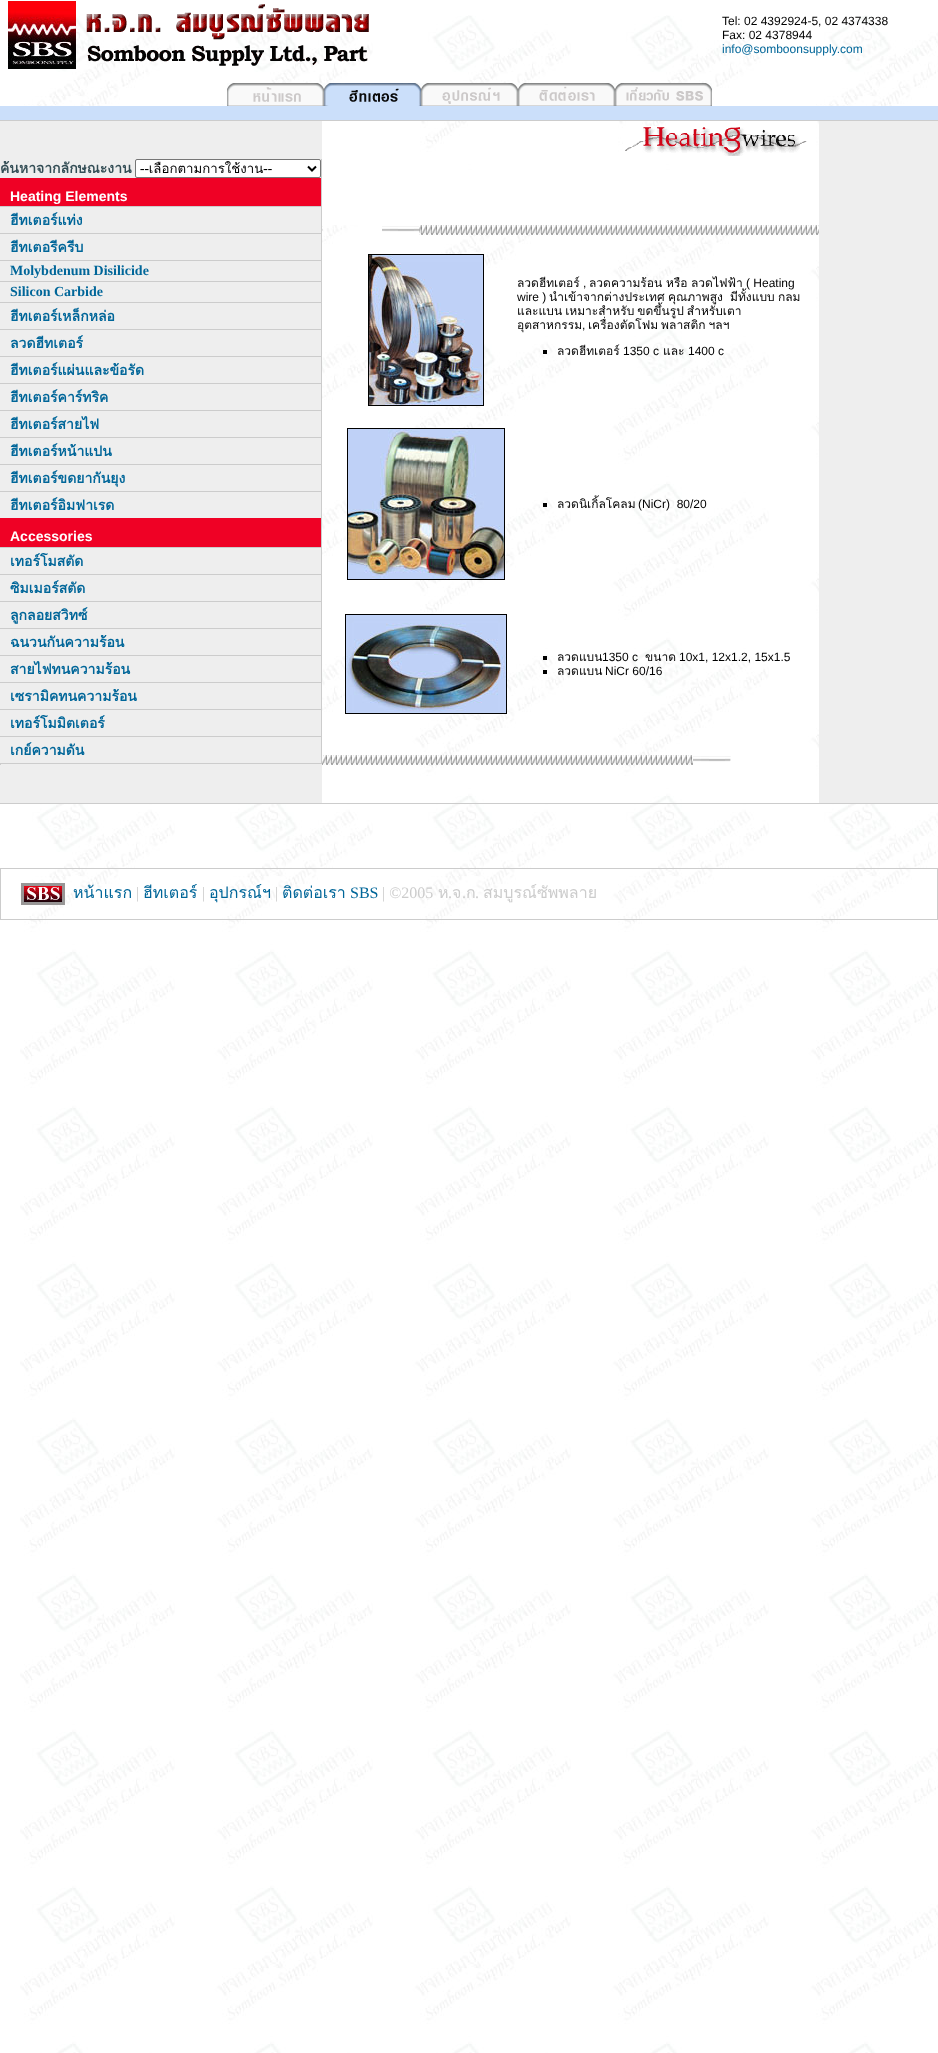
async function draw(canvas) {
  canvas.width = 938;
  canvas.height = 2053;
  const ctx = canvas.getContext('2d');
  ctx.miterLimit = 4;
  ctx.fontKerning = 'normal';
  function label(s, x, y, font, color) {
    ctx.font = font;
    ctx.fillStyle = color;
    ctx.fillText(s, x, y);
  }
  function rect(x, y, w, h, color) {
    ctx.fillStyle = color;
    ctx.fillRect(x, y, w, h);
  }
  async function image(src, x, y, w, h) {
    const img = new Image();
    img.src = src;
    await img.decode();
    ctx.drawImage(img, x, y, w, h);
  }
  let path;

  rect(0, 0, 938, 2053, '#fff');
  await image('assets/img1.png', 20, 15, 918, 2038);
  rect(0, 803, 938, 1, '#ccc');
  await image('assets/img2.png', 8, 1, 68, 68);
  await image('assets/img3.png', 86, 4, 283, 62);
  label('Tel: 02 4392924-5, 02 4374338', 722, 25, '12px Liberation Sans', '#000');
  label('Fax: 02 4378944', 722, 39, '12px Liberation Sans', '#000');
  label('info@somboonsupply.com', 722, 53, '12px Liberation Sans', '#069');
  rect(0, 120, 938, 1, '#ccc');
  await image('assets/img4.png', 227, 83, 97, 23);
  await image('assets/img5.png', 324, 83, 97, 23);
  await image('assets/img6.png', 421, 83, 97, 23);
  await image('assets/img7.png', 518, 83, 97, 23);
  await image('assets/img8.png', 615, 83, 97, 23);
  rect(0, 106, 938, 14, '#cbdffa');
  rect(0, 121, 322, 682, '#eee');
  rect(321, 159, 1, 605, '#ccc');
  rect(0, 763, 322, 1, '#ccc');
  label('ค้นหาจากลักษณะงาน', 0, 173, 'bold 14px Loma', '#334d55');
  ctx.fillStyle = '#fff';
  ctx.beginPath();
  ctx.roundRect(135.5, 159.5, 185, 18, 1.5);
  ctx.fill();
  ctx.strokeStyle = '#767676';
  ctx.stroke();
  path = new Path2D('M308 166.5L312 170.5L316 166.5');
  ctx.strokeStyle = '#000';
  ctx.lineWidth = 2;
  ctx.stroke(path);
  label('--เลือกตามการใช้งาน--', 140, 173, '13.25px Loma', '#000');
  rect(0, 178, 321, 28, '#ef0125');
  label('Heating Elements', 10, 201, 'bold 14px Liberation Sans', '#fff');
  rect(0, 206, 321, 1, '#ccc');
  label('ฮีทเตอร์แท่ง', 10, 225, 'bold 14px Loma', '#069');
  rect(0, 233, 321, 1, '#ccc');
  label('ฮีทเตอรีครีบ', 10, 252, 'bold 14px Loma', '#069');
  rect(0, 260, 321, 1, '#ccc');
  label('Molybdenum Disilicide', 10, 275, 'bold 14px Liberation Serif', '#069');
  rect(0, 281, 321, 1, '#ccc');
  label('Silicon Carbide', 10, 296, 'bold 14px Liberation Serif', '#069');
  rect(0, 302, 321, 1, '#ccc');
  label('ฮีทเตอร์เหล็กหล่อ', 10, 321, 'bold 14px Loma', '#069');
  rect(0, 329, 321, 1, '#ccc');
  label('ลวดฮีทเตอร์', 10, 348, 'bold 14px Loma', '#069');
  rect(0, 356, 321, 1, '#ccc');
  label('ฮีทเตอร์แผ่นและข้อรัด', 10, 375, 'bold 14px Loma', '#069');
  rect(0, 383, 321, 1, '#ccc');
  label('ฮีทเตอร์คาร์ทริค', 10, 402, 'bold 14px Loma', '#069');
  rect(0, 410, 321, 1, '#ccc');
  label('ฮีทเตอร์สายไฟ', 10, 429, 'bold 14px Loma', '#069');
  rect(0, 437, 321, 1, '#ccc');
  label('ฮีทเตอร์หน้าแปน', 10, 456, 'bold 14px Loma', '#069');
  rect(0, 464, 321, 1, '#ccc');
  label('ฮีทเตอร์ขดยากันยุง', 10, 483, 'bold 14px Loma', '#069');
  rect(0, 491, 321, 1, '#ccc');
  label('ฮีทเตอร์อิมฟาเรด', 10, 510, 'bold 14px Loma', '#069');
  rect(0, 518, 321, 29, '#ef0125');
  label('Accessories', 10, 541, 'bold 14px Liberation Sans', '#fff');
  rect(0, 547, 321, 1, '#ccc');
  label('เทอร์โมสตัด', 10, 566, 'bold 14px Loma', '#069');
  rect(0, 574, 321, 1, '#ccc');
  label('ซิมเมอร์สตัด', 10, 593, 'bold 14px Loma', '#069');
  rect(0, 601, 321, 1, '#ccc');
  label('ลูกลอยสวิทซ์', 10, 620, 'bold 14px Loma', '#069');
  rect(0, 628, 321, 1, '#ccc');
  label('ฉนวนกันความร้อน', 10, 647, 'bold 14px Loma', '#069');
  rect(0, 655, 321, 1, '#ccc');
  label('สายไฟทนความร้อน', 10, 674, 'bold 14px Loma', '#069');
  rect(0, 682, 321, 1, '#ccc');
  label('เซรามิคทนความร้อน', 10, 701, 'bold 14px Loma', '#069');
  rect(0, 709, 321, 1, '#ccc');
  label('เทอร์โมมิตเตอร์', 10, 728, 'bold 14px Loma', '#069');
  rect(0, 736, 321, 1, '#ccc');
  label('เกย์ความดัน', 10, 755, 'bold 14px Loma', '#069');
  rect(0, 764, 1, 1, '#ccc');
  await image('assets/img9.png', 623, 126, 184, 30);
  rect(322, 170, 447, 55, '#fff');
  await image('assets/img10.png', 322, 226, 1, 5);
  await image('assets/img11.png', 419, 225, 400, 10);
  await image('assets/img12.png', 382, 225, 37, 10);
  ctx.lineWidth = 1;
  ctx.strokeRect(368.5, 254.5, 115, 151);
  await image('assets/img13.png', 369, 255, 114, 150);
  label('ลวดฮีทเตอร์', 517, 287, '12px Loma', '#000');
  label(',', 583, 287, '12px Liberation Sans', '#000');
  label('ลวดความร้อน', 589, 287, '12px Loma', '#000');
  label('หรือ', 666, 287, '12px Loma', '#000');
  label('ลวดไฟฟ้า', 691, 287, '12px Loma', '#000');
  label('( Heating', 746, 287, '12px Liberation Sans', '#000');
  label('wire )', 517, 301, '12px Liberation Sans', '#000');
  label('นำเข้าจากต่างประเทศ', 549, 301, '12px Loma', '#000');
  label('คุณภาพสูง', 668, 301, '12px Loma', '#000');
  label('มีทั้งแบบ', 730, 301, '12px Loma', '#000');
  label('กลม', 778, 301, '12px Loma', '#000');
  ctx.wordSpacing = '-1px';
  label('และแบน เหมาะสำหรับ ขดขึ้นรูป สำหรับเตา', 517, 315, '12px Loma', '#000');
  ctx.wordSpacing = '0px';
  label('อุตสาหกรรม', 517, 329, '12px Loma', '#000');
  label(',', 582, 329, '12px Liberation Sans', '#000');
  ctx.wordSpacing = '-1px';
  label('เครื่องตัดโฟม พลาสติก ฯลฯ', 588, 329, '12px Loma', '#000');
  rect(543, 350, 4, 4, '#000');
  ctx.wordSpacing = '0px';
  label('ลวดฮีทเตอร์', 557, 355, '12px Loma', '#000');
  label('1350 c', 623, 355, '12px Liberation Sans', '#000');
  label('และ', 663, 355, '12px Loma', '#000');
  label('1400 c', 688, 355, '12px Liberation Sans', '#000');
  ctx.strokeRect(347.5, 428.5, 157, 151);
  await image('assets/img14.png', 348, 429, 156, 150);
  rect(543, 503, 4, 4, '#000');
  label('ลวดนิเกิ้ลโคลม', 557, 508, '12px Loma', '#000');
  label('(NiCr)  80/20', 638, 508, '12px Liberation Sans', '#000');
  ctx.strokeRect(345.5, 614.5, 161, 99);
  await image('assets/img15.png', 346, 615, 160, 98);
  rect(543, 656, 4, 4, '#000');
  label('ลวดแบน', 557, 661, '12px Loma', '#000');
  label('1350 c', 602, 661, '12px Liberation Sans', '#000');
  label('ขนาด', 645, 661, '12px Loma', '#000');
  label('10x1, 12x1.2, 15x1.5', 679, 661, '12px Liberation Sans', '#000');
  rect(543, 670, 4, 4, '#000');
  label('ลวดแบน', 557, 675, '12px Loma', '#000');
  label('NiCr 60/16', 605, 675, '12px Liberation Sans', '#000');
  await image('assets/img16.png', 322, 755, 371, 10);
  await image('assets/img12.png', 693, 755, 37, 10);
  await image('assets/img10.png', 730, 756, 1, 5);
  rect(819, 121, 119, 682, '#eee');
  ctx.strokeStyle = '#ccc';
  ctx.strokeRect(0.5, 868.5, 937, 51);
  await image('assets/img17.png', 21, 883, 44, 22);
  label('หน้าแรก', 73, 898, '16px Loma', '#069');
  label('|', 136, 898, '16px Liberation Serif', '#ccc');
  label('ฮีทเตอร์', 143, 898, '16px Loma', '#069');
  label('อุปกรณ์ฯ', 209, 898, '16px Loma', '#069');
  label('|', 275, 898, '16px Liberation Serif', '#ccc');
  label('ติดต่อเรา', 282, 898, '16px Loma', '#069');
  label('สมบูรณ์ซัพพลาย', 483, 898, '16px Loma', '#ccc');
  label('|', 202, 898, '16px Liberation Serif', '#ccc');
  label('SBS', 350, 898, '16px Liberation Serif', '#069');
  label('| ©2005', 382, 898, '16px Liberation Serif', '#ccc');
  label('ห', 438, 898, '16px Loma', '#ccc');
  label('.', 448, 898, '16px Liberation Serif', '#ccc');
  label('จ', 452, 898, '16px Loma', '#ccc');
  label('.', 462, 898, '16px Liberation Serif', '#ccc');
  label('ก', 466, 898, '16px Loma', '#ccc');
  label('.', 475, 898, '16px Liberation Serif', '#ccc');
}

draw(document.querySelector('canvas'));
